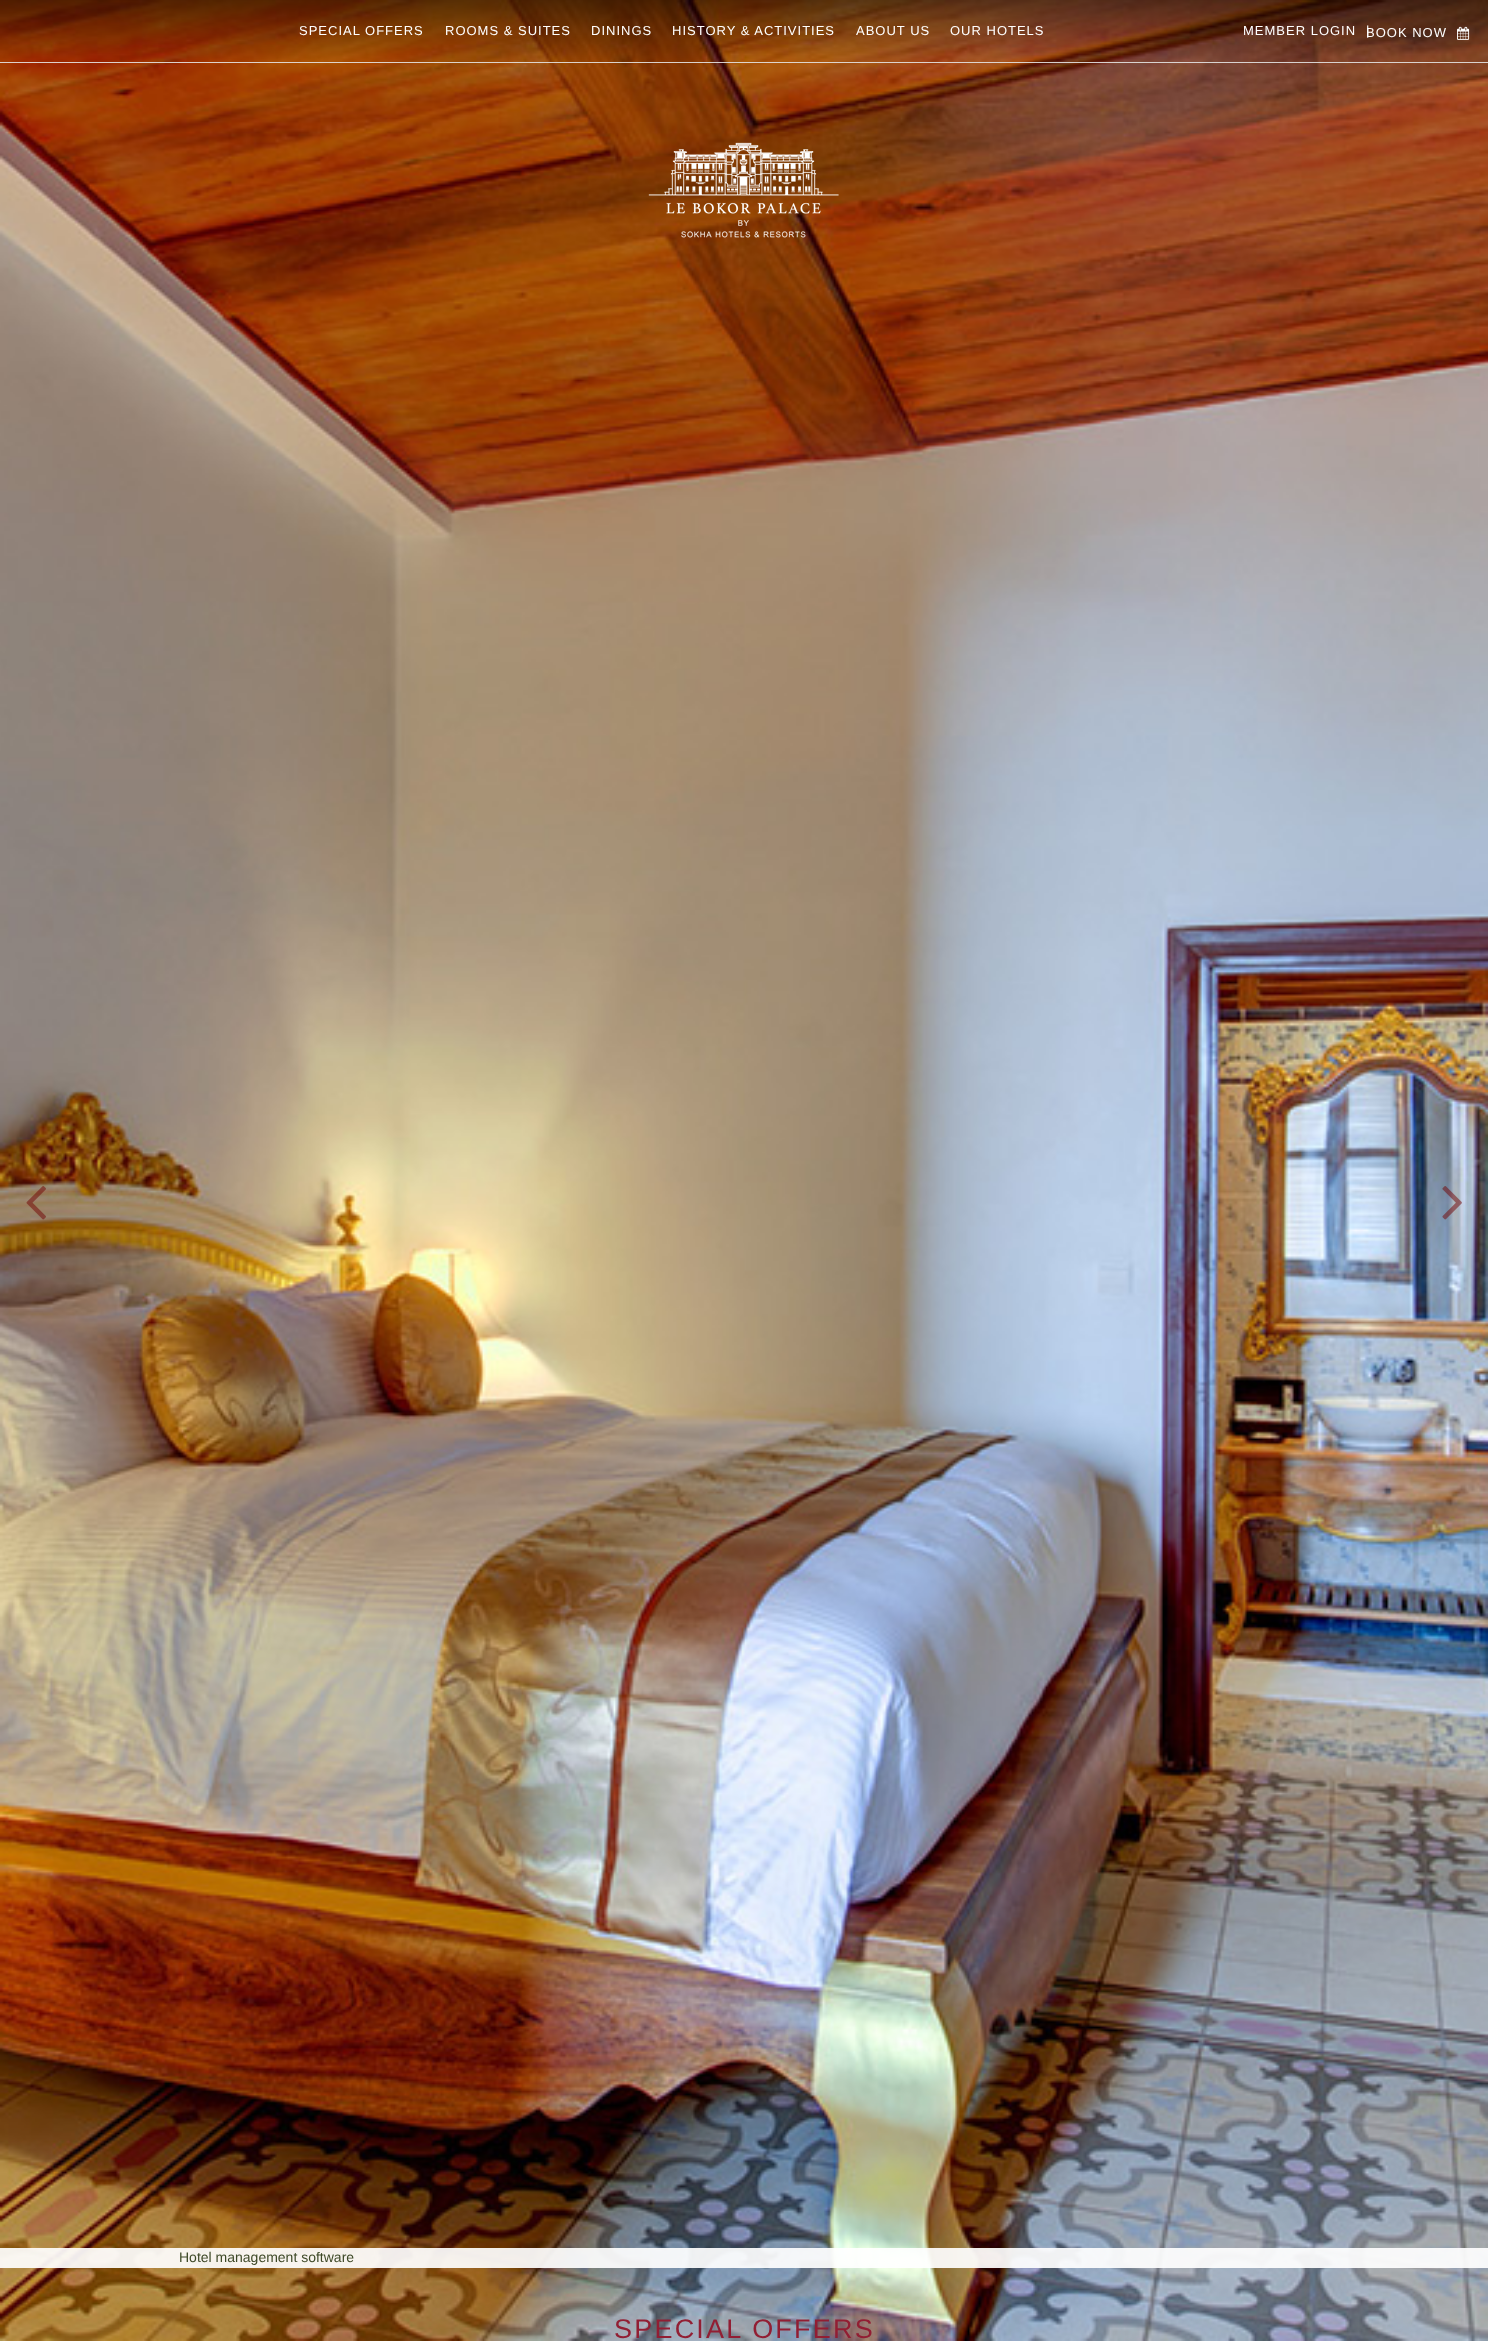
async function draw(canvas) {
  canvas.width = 1488;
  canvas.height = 2341;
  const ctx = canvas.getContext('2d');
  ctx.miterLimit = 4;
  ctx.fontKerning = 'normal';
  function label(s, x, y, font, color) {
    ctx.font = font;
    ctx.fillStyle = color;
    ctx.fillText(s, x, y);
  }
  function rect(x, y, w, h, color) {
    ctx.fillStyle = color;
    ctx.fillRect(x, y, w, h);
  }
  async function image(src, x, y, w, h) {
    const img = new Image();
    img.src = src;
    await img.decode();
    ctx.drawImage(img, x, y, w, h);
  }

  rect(0, 0, 1488, 2341, '#fff');
  await image('assets/img1.png', 0, 0, 1488, 2341);
  await image('assets/img2.png', 26, 1186, 20, 34);
  await image('assets/img3.png', 1442, 1186, 20, 34);
  await image('assets/img4.png', 648, 142, 191, 96);
  rect(0, 62, 1488, 1, '#ffffffcc');
  ctx.letterSpacing = '1px';
  label('SPECIAL OFFERS', 299, 35, '13px Liberation Sans', '#fff');
  label('ROOMS & SUITES', 445, 35, '13px Liberation Sans', '#fff');
  label('DININGS', 591, 35, '13px Liberation Sans', '#fff');
  label('HISTORY & ACTIVITIES', 672, 35, '13px Liberation Sans', '#fff');
  label('ABOUT US', 856, 35, '13px Liberation Sans', '#fff');
  label('OUR HOTELS', 950, 35, '13px Liberation Sans', '#fff');
  label('MEMBER LOGIN', 1243, 35, '13px Liberation Sans', '#fff');
  label('|', 1366, 35, '13px Liberation Sans', '#fff');
  label('BOOK NOW', 1366, 37, '13px Liberation Sans', '#fff');
  await image('assets/img5.png', 1457, 26, 13, 14);
  rect(0, 2248, 1488, 20, '#ffffffeb');
  ctx.letterSpacing = '0px';
  label('Hotel management software', 179, 2262, '14px Liberation Sans', '#3d4826');
  ctx.letterSpacing = '2.2px';
  label('SPECIAL OFFERS', 614, 2338, '27px Liberation Sans', '#921e33');
}

draw(document.querySelector('canvas'));
